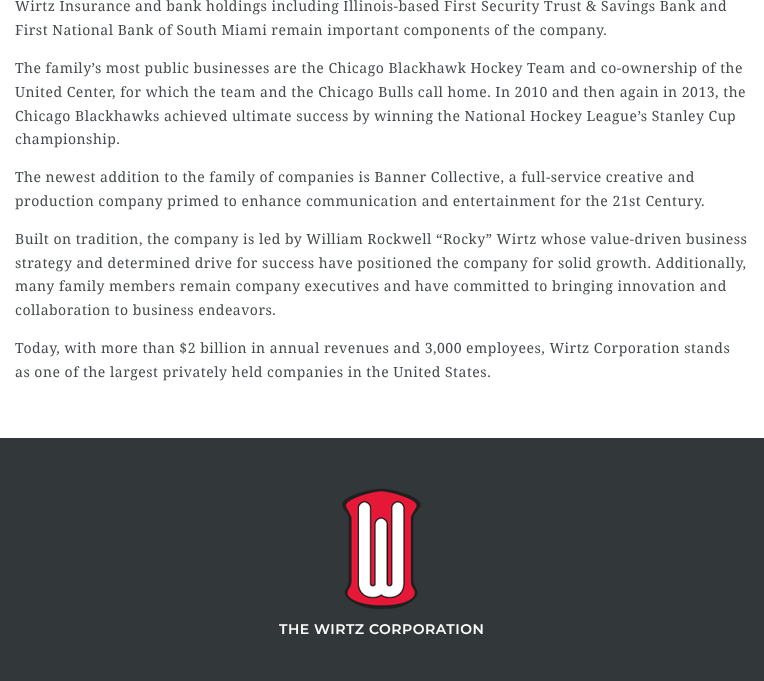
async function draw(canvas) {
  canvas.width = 764;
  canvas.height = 681;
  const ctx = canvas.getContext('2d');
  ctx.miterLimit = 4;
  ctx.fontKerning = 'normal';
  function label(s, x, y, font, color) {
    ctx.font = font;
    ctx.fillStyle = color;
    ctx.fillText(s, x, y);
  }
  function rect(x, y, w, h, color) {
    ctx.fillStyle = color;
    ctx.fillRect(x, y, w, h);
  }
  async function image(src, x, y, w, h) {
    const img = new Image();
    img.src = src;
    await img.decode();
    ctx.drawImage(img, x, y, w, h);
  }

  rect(0, 0, 764, 681, '#fff');
  ctx.letterSpacing = '0.5px';
  label('Wirtz Insurance and bank holdings including Illinois-based First Security Trust & Savings Bank and', 15, 11, '14px Noto Serif', '#44494b');
  label('First National Bank of South Miami remain important components of the company.', 15, 35, '14px Noto Serif', '#44494b');
  label('The family’s most public businesses are the Chicago Blackhawk Hockey Team and co-ownership of the', 15, 73, '14px Noto Serif', '#44494b');
  label('United Center, for which the team and the Chicago Bulls call home. In 2010 and then again in 2013, the', 15, 97, '14px Noto Serif', '#44494b');
  label('Chicago Blackhawks achieved ultimate success by winning the National Hockey League’s Stanley Cup', 15, 121, '14px Noto Serif', '#44494b');
  label('championship.', 15, 144, '14px Noto Serif', '#44494b');
  label('The newest addition to the family of companies is Banner Collective, a full-service creative and', 15, 182, '14px Noto Serif', '#44494b');
  label('production company primed to enhance communication and entertainment for the 21st Century.', 15, 206, '14px Noto Serif', '#44494b');
  label('Built on tradition, the company is led by William Rockwell “Rocky” Wirtz whose value-driven business', 15, 244, '14px Noto Serif', '#44494b');
  label('strategy and determined drive for success have positioned the company for solid growth. Additionally,', 15, 268, '14px Noto Serif', '#44494b');
  label('many family members remain company executives and have committed to bringing innovation and', 15, 291, '14px Noto Serif', '#44494b');
  label('collaboration to business endeavors.', 15, 315, '14px Noto Serif', '#44494b');
  label('Today, with more than $2 billion in annual revenues and 3,000 employees, Wirtz Corporation stands', 15, 353, '14px Noto Serif', '#44494b');
  label('as one of the largest privately held companies in the United States.', 15, 377, '14px Noto Serif', '#44494b');
  rect(0, 438, 764, 243, '#32373a');
  await image('assets/img1.png', 342, 488, 79, 121);
  label('THE WIRTZ CORPORATION', 279, 634, '600 14px Montserrat', '#fff');
}

draw(document.querySelector('canvas'));
